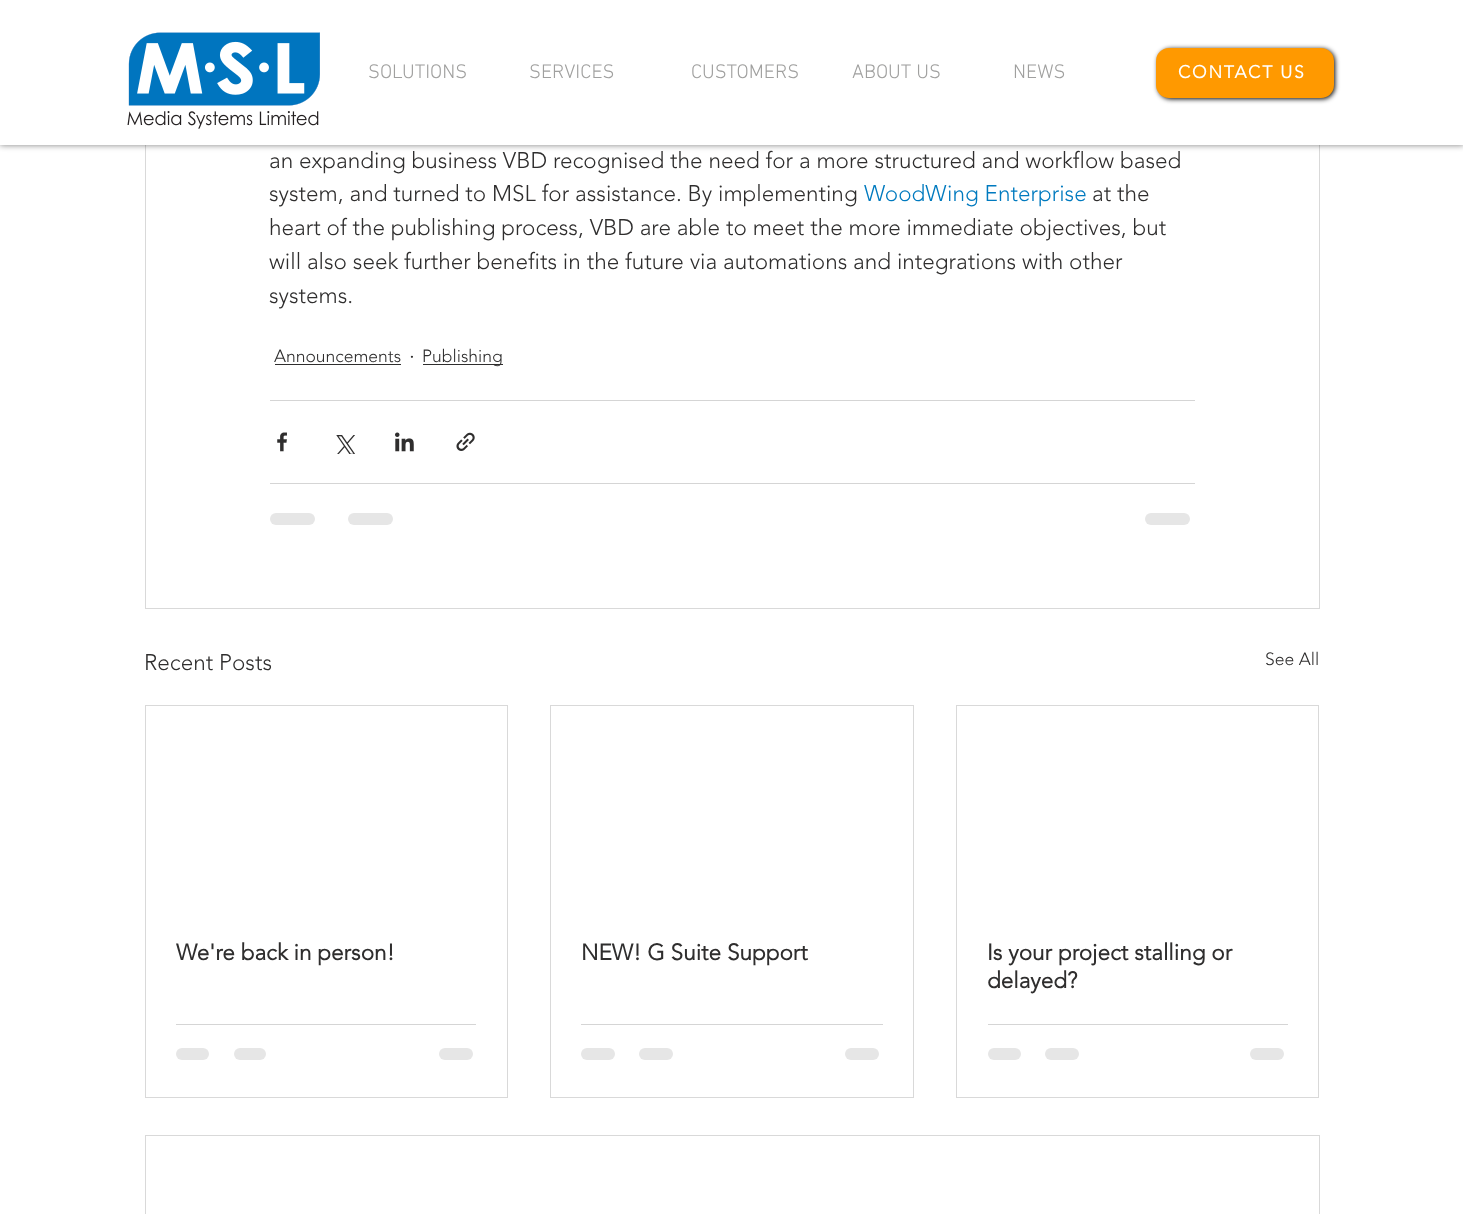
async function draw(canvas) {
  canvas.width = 1463;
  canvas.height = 1214;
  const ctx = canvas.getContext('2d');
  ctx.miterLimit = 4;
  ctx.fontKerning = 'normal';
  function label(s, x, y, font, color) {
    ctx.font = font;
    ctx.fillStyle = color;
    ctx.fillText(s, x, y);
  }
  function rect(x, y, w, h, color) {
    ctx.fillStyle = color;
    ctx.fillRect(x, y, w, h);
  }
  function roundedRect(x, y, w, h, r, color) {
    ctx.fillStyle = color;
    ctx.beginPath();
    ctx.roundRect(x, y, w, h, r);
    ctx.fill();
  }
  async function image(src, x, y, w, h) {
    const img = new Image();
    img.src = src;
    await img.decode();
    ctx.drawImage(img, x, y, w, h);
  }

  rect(0, 0, 1463, 1214, '#fff');
  ctx.strokeStyle = '#d9d9d9';
  ctx.strokeRect(145.5, -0.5, 1174, 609);
  ctx.fillStyle = '#00000080';
  ctx.filter = 'blur(3px)';
  ctx.beginPath();
  ctx.rect(0, 0, 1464, 145);
  ctx.fill();
  ctx.filter = 'none';
  rect(0, 0, 1463, 145, '#fff');
  await image('assets/img1.png', 127, 32, 193, 97);
  label('SOLUTIONS', 368, 78, '300 20px "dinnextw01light"', '#a0a09f');
  label('SERVICES', 529, 78, '300 20px "dinnextw01light"', '#a0a09f');
  label('CUSTOMERS', 691, 78, '300 20px "dinnextw01light"', '#a0a09f');
  label('ABOUT US', 852, 78, '300 20px "dinnextw01light"', '#a0a09f');
  label('NEWS', 1013, 78, '300 20px "dinnextw01light"', '#a0a09f');
  ctx.fillStyle = '#000';
  ctx.filter = 'blur(2.5px)';
  ctx.beginPath();
  ctx.roundRect(1158, 49, 177, 50, 13);
  ctx.fill();
  ctx.filter = 'none';
  roundedRect(1156, 48, 178, 50, 13, '#f90');
  ctx.letterSpacing = '1.75px';
  label('CONTACT US', 1178, 78, 'bold 17.5px "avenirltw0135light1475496"', '#fff');
  ctx.letterSpacing = '0px';
  label('an expanding business VBD recognised the need for a more structured and workflow based', 269, 168, '300 22.5px "avenirltw0135light1475496"', '#2f2e2e');
  label('system, and turned to MSL for assistance. By implementing', 269, 201, '300 22.5px "avenirltw0135light1475496"', '#2f2e2e');
  label('WoodWing Enterprise', 864, 201, '300 22.5px "avenirltw0135light1475496"', '#007abf');
  label('at the', 1092, 201, '300 22.5px "avenirltw0135light1475496"', '#2f2e2e');
  label('heart of the publishing process, VBD are able to meet the more immediate objectives, but', 269, 235, '300 22.5px "avenirltw0135light1475496"', '#2f2e2e');
  label('will also seek further benefits in the future via automations and integrations with other', 269, 269, '300 22.5px "avenirltw0135light1475496"', '#2f2e2e');
  label('systems.', 269, 303, '300 22.5px "avenirltw0135light1475496"', '#2f2e2e');
  label('Announcements', 274, 362, '300 17.5px "avenirltw0135light1475496"', '#2f2e2e');
  rect(275, 364, 126, 1, '#2f2e2e');
  label('·', 409, 364, '300 22.5px "avenirltw0135light1475496"', '#2f2e2e');
  rect(423, 364, 80, 1, '#2f2e2e');
  label('Publishing', 422, 362, '300 17.5px "avenirltw0135light1475496"', '#2f2e2e');
  rect(270, 400, 925, 1, '#d5d5d5');
  await image('assets/img2.png', 277, 432, 10, 20);
  await image('assets/img3.png', 336, 435, 19, 19);
  await image('assets/img4.png', 395, 432, 19, 20);
  await image('assets/img5.png', 456, 432, 19, 19);
  rect(270, 483, 925, 1, '#d5d5d5');
  roundedRect(270, 513, 45, 12, 6, '#e6e6e6');
  roundedRect(348, 513, 45, 12, 6, '#e6e6e6');
  roundedRect(1145, 513, 45, 12, 6, '#e6e6e6');
  label('Recent Posts', 144, 670, '300 22.5px "avenirltw0135light1475496"', '#2f2e2e');
  label('See All', 1265, 665, '300 17.5px "avenirltw0135light1475496"', '#2f2e2e');
  ctx.strokeRect(145.5, 705.5, 362, 392);
  label('We\'re back in person!', 176, 960, 'bold 22.5px "avenirltw0135light1475496"', '#2f2e2e');
  rect(176, 1024, 300, 1, '#d5d5d5');
  roundedRect(176, 1048, 33, 12, 6, '#e6e6e6');
  roundedRect(234, 1048, 32, 12, 6, '#e6e6e6');
  roundedRect(439, 1048, 34, 12, 6, '#e6e6e6');
  ctx.strokeRect(550.5, 705.5, 363, 392);
  label('NEW! G Suite Support', 581, 960, 'bold 22.5px "avenirltw0135light1475496"', '#2f2e2e');
  rect(581, 1024, 302, 1, '#d5d5d5');
  roundedRect(581, 1048, 34, 12, 6, '#e6e6e6');
  roundedRect(639, 1048, 34, 12, 6, '#e6e6e6');
  roundedRect(845, 1048, 34, 12, 6, '#e6e6e6');
  ctx.strokeRect(956.5, 705.5, 362, 392);
  label('Is your project stalling or', 987, 960, 'bold 22.5px "avenirltw0135light1475496"', '#2f2e2e');
  label('delayed?', 987, 988, 'bold 22.5px "avenirltw0135light1475496"', '#2f2e2e');
  rect(988, 1024, 300, 1, '#d5d5d5');
  roundedRect(988, 1048, 33, 12, 6, '#e6e6e6');
  roundedRect(1045, 1048, 34, 12, 6, '#e6e6e6');
  roundedRect(1250, 1048, 34, 12, 6, '#e6e6e6');
  ctx.strokeRect(145.5, 1135.5, 1174, 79);
}

draw(document.querySelector('canvas'));
